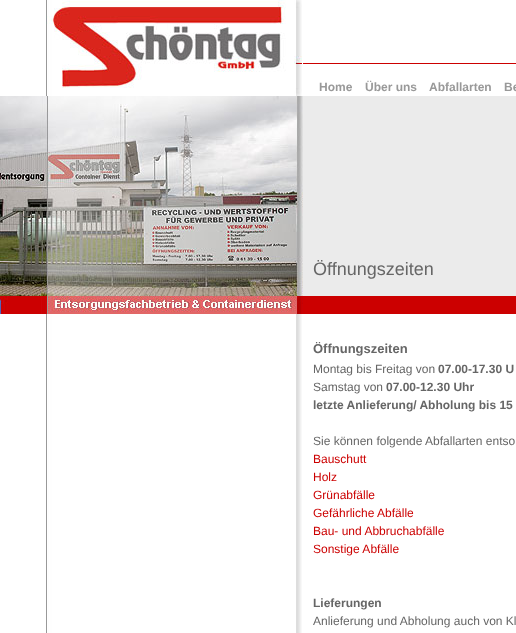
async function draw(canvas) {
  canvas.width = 516;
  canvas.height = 633;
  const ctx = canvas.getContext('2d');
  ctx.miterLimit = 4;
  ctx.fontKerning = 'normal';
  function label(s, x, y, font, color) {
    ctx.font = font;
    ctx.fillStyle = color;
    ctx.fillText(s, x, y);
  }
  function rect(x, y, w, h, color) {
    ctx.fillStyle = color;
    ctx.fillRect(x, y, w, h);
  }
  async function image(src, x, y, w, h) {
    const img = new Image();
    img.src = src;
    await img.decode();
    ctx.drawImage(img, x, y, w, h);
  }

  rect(0, 0, 516, 633, '#fff');
  await image('assets/img1.png', 46, 0, 256, 96);
  rect(303, 63, 213, 1, '#c00');
  label('Home', 319, 91, 'bold 12px Liberation Sans', '#999');
  label('Über uns', 365, 91, 'bold 12px Liberation Sans', '#999');
  label('Abfallarten', 429, 91, 'bold 12px Liberation Sans', '#999');
  label('Be', 504, 91, 'bold 12px Liberation Sans', '#999');
  await image('assets/img2.png', 0, 96, 303, 200);
  rect(303, 96, 213, 200, '#ebebeb');
  label('Öffnungszeiten', 313, 275, '18px Liberation Sans', '#666');
  rect(303, 296, 213, 18, '#c00');
  await image('assets/img3.png', 0, 296, 303, 18);
  await image('assets/img4.png', 46, 314, 256, 319);
  label('Öffnungszeiten', 313, 353, 'bold 13px Liberation Sans', '#666');
  label('Montag bis Freitag von', 313, 373, '12px Liberation Sans', '#666');
  label('07.00-17.30 U', 438, 373, 'bold 12px Liberation Sans', '#666');
  label('Samstag von', 313, 391, '12px Liberation Sans', '#666');
  label('07.00-12.30 Uhr', 386, 391, 'bold 12px Liberation Sans', '#666');
  label('letzte Anlieferung/ Abholung bis 15', 313, 409, 'bold 12px Liberation Sans', '#666');
  label('Sie können folgende Abfallarten entso', 313, 445, '12px Liberation Sans', '#666');
  label('Bauschutt', 313, 463, '12px Liberation Sans', '#c00');
  label('Holz', 313, 481, '12px Liberation Sans', '#c00');
  label('Grünabfälle', 313, 499, '12px Liberation Sans', '#c00');
  label('Gefährliche Abfälle', 313, 517, '12px Liberation Sans', '#c00');
  label('Bau- und Abbruchabfälle', 313, 535, '12px Liberation Sans', '#c00');
  label('Sonstige Abfälle', 313, 553, '12px Liberation Sans', '#c00');
  label('Lieferungen', 313, 607, 'bold 12px Liberation Sans', '#666');
  label('Anlieferung und Abholung auch von Kl', 313, 625, '12px Liberation Sans', '#666');
}

draw(document.querySelector('canvas'));
